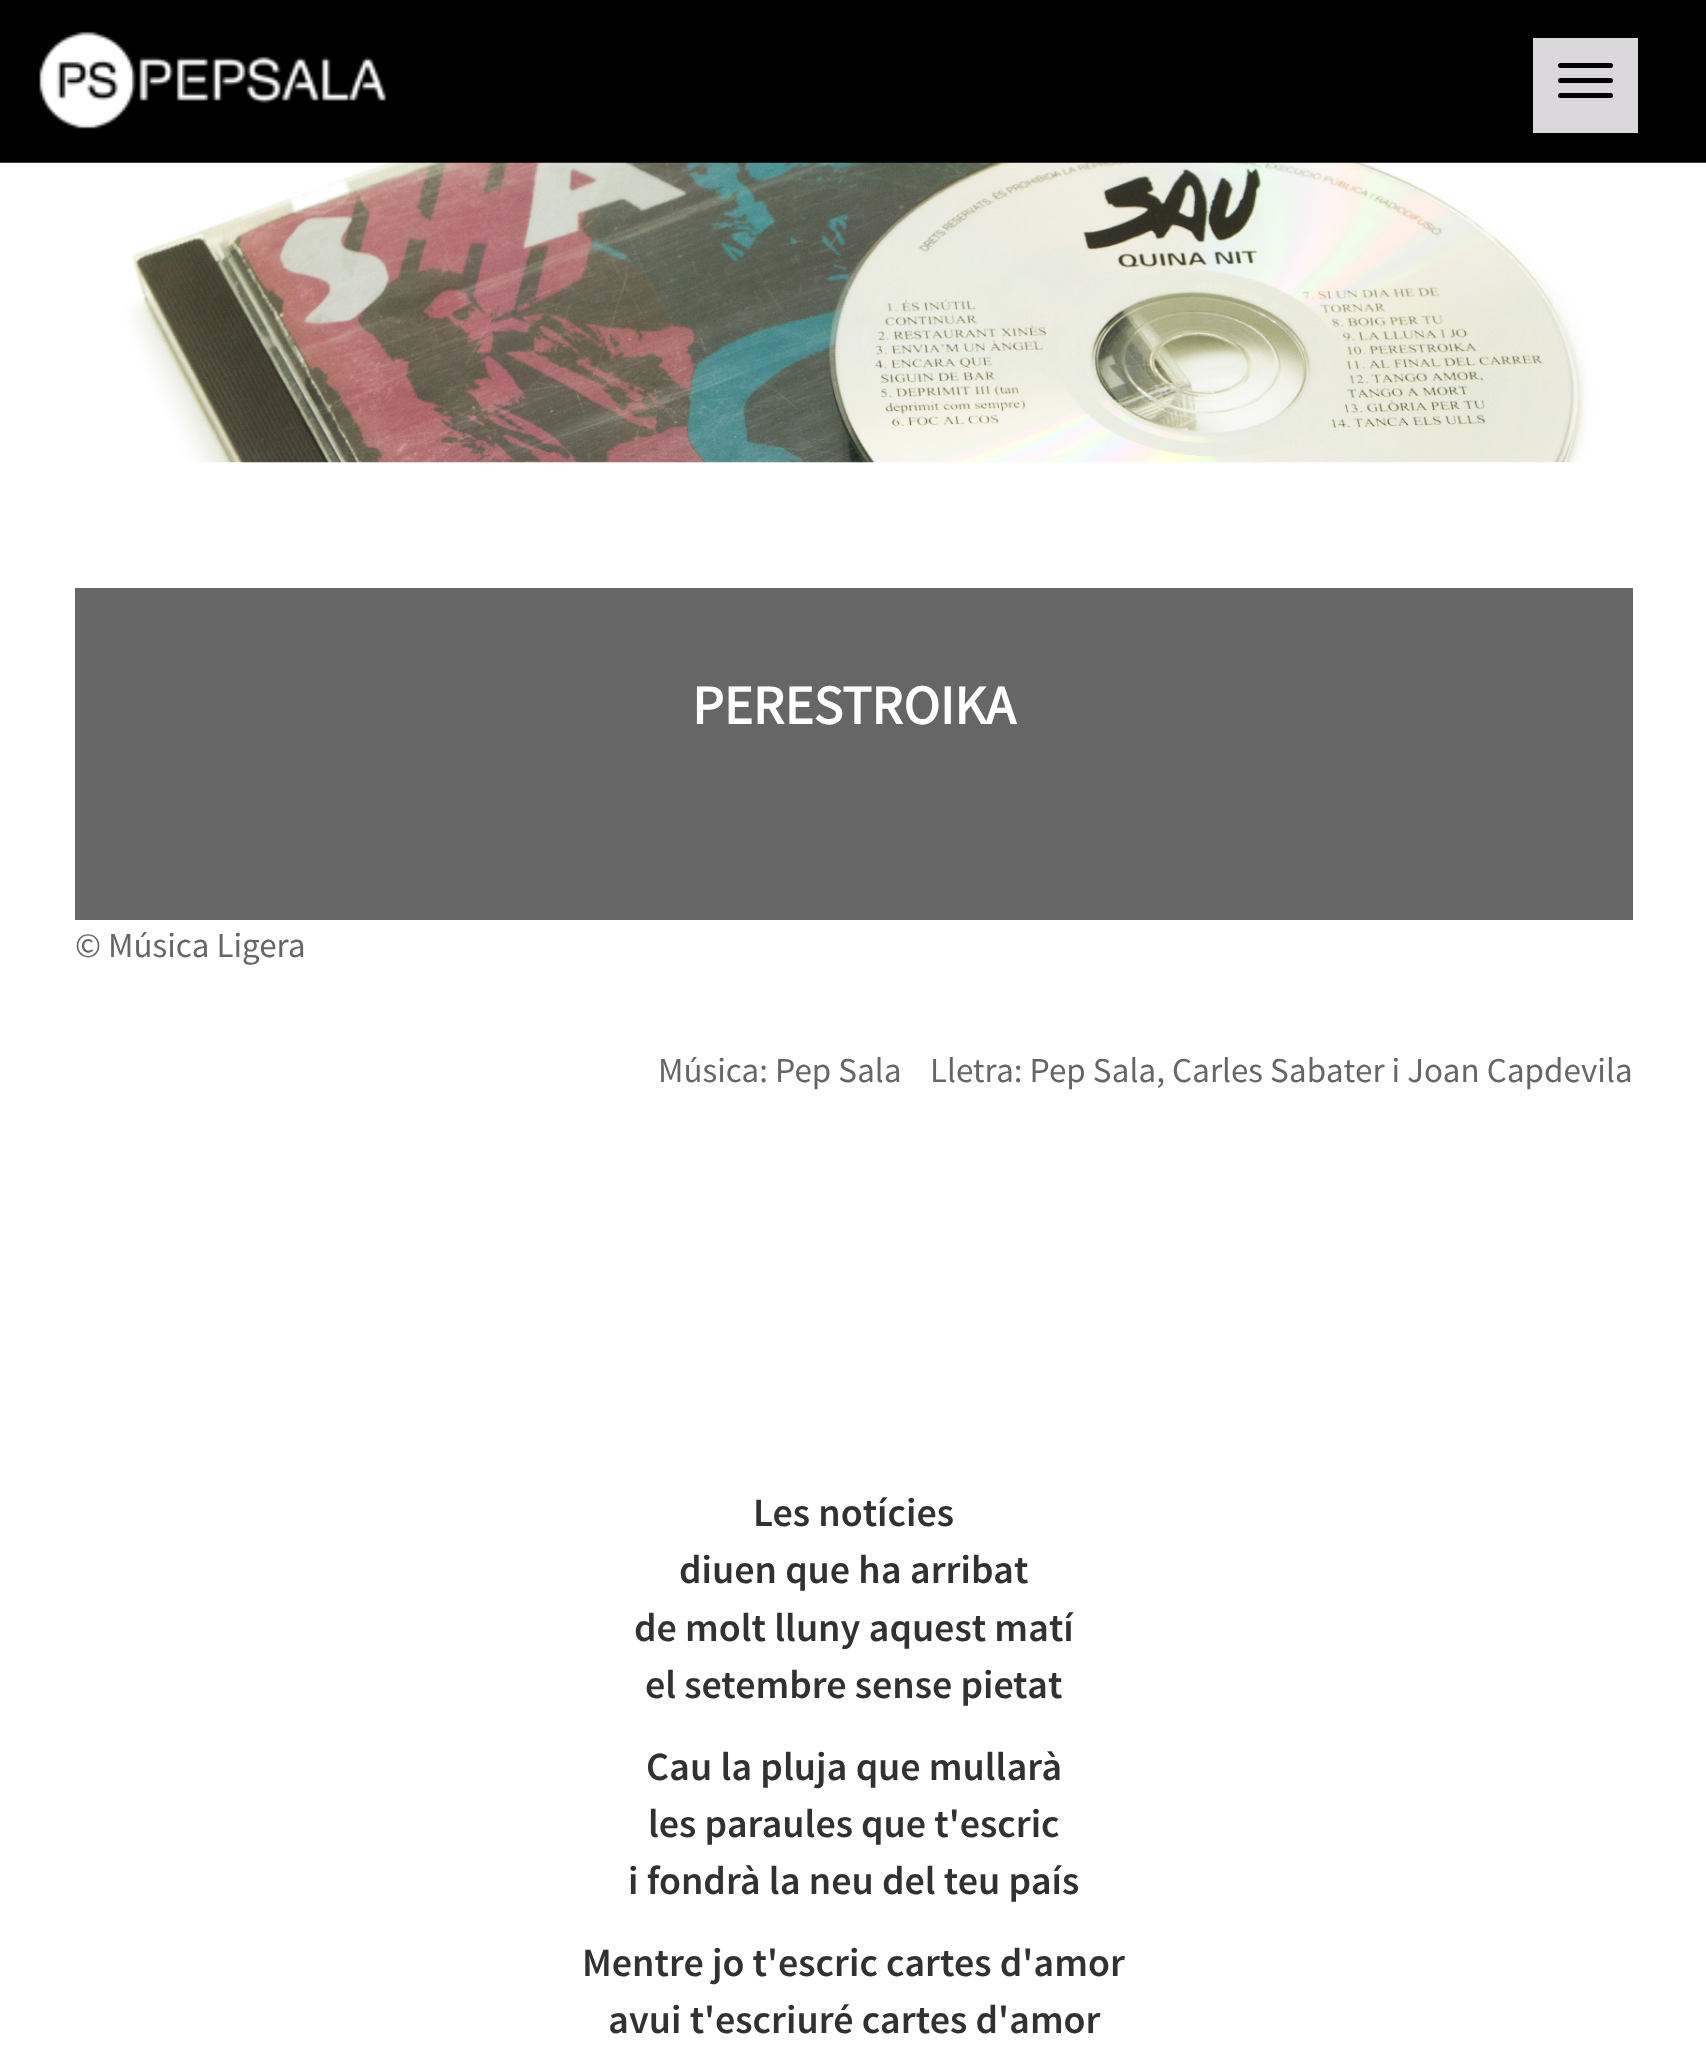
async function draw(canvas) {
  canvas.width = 1706;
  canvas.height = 2063;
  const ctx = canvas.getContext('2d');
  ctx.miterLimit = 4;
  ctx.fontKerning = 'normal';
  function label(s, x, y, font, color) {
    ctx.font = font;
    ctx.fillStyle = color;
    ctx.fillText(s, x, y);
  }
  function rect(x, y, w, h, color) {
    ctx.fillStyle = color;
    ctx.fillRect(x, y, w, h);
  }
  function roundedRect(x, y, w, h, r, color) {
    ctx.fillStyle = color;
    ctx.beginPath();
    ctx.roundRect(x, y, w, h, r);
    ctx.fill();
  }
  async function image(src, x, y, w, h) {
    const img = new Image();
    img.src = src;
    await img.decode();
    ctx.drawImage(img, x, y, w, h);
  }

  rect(0, 0, 1706, 2063, '#fff');
  rect(0, 0, 1706, 163, '#000');
  await image('assets/img1.png', 39, 31, 347, 98);
  rect(1533, 38, 105, 95, '#dbd8db');
  roundedRect(1558, 63, 55, 5, 2.5, '#000');
  roundedRect(1558, 78, 55, 5, 2.5, '#000');
  roundedRect(1558, 93, 55, 5, 2.5, '#000');
  await image('assets/img2.png', 0, 162, 1706, 301);
  rect(75, 588, 1558, 332, '#666');
  label('PERESTROIKA', 692, 724, 'bold 55px Source Sans Pro', '#fff');
  label('© Música Ligera', 75, 957, '35px Source Sans Pro', '#666');
  label('Música: Pep Sala    Lletra: Pep Sala, Carles Sabater i Joan Capdevila', 658, 1082, '35px Source Sans Pro', '#666');
  label('Les notícies', 753, 1526, '600 40px Source Sans Pro', '#313131');
  label('diuen que ha arribat', 679, 1583, '600 40px Source Sans Pro', '#313131');
  label('de molt lluny aquest matí', 634, 1641, '600 40px Source Sans Pro', '#313131');
  label('el setembre sense pietat', 645, 1698, '600 40px Source Sans Pro', '#313131');
  label('Cau la pluja que mullarà', 646, 1780, '600 40px Source Sans Pro', '#313131');
  label('les paraules que t\'escric', 648, 1837, '600 40px Source Sans Pro', '#313131');
  label('i fondrà la neu del teu país', 628, 1894, '600 40px Source Sans Pro', '#313131');
  label('Mentre jo t\'escric cartes d\'amor', 582, 1976, '600 40px Source Sans Pro', '#313131');
  label('avui t\'escriuré cartes d\'amor', 608, 2033, '600 40px Source Sans Pro', '#313131');
}

draw(document.querySelector('canvas'));
